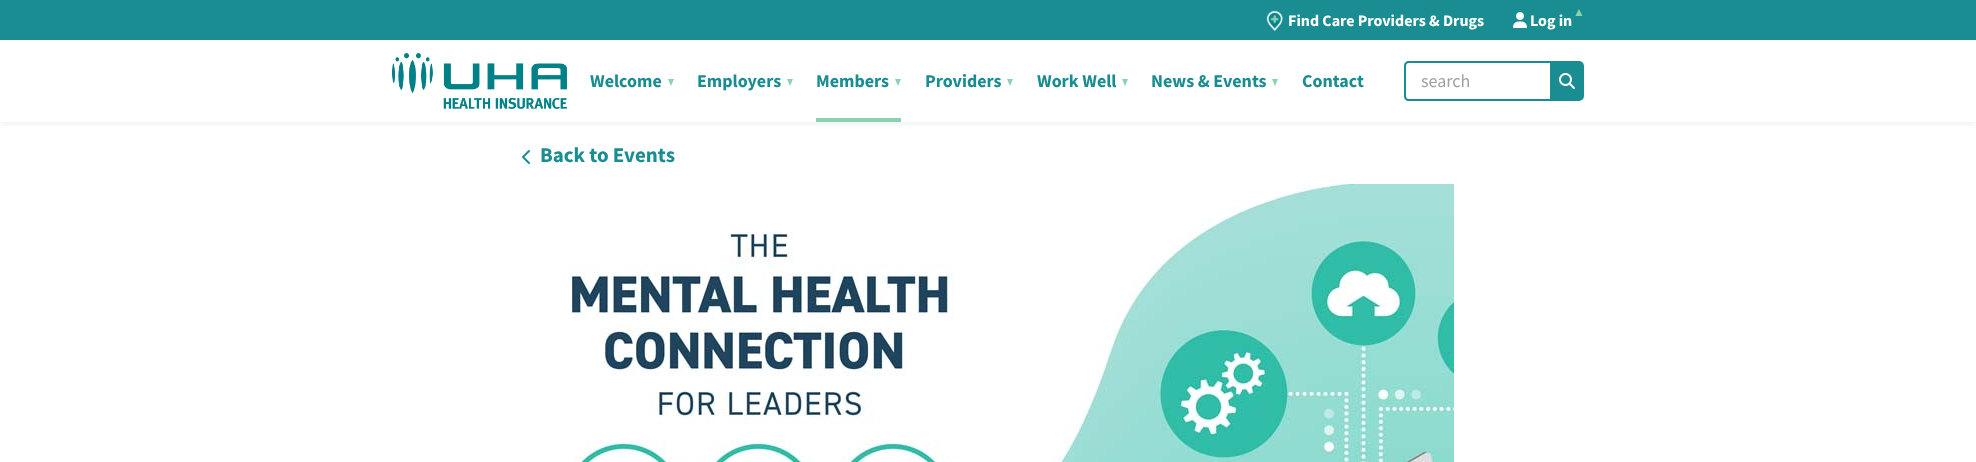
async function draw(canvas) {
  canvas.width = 1976;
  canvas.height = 462;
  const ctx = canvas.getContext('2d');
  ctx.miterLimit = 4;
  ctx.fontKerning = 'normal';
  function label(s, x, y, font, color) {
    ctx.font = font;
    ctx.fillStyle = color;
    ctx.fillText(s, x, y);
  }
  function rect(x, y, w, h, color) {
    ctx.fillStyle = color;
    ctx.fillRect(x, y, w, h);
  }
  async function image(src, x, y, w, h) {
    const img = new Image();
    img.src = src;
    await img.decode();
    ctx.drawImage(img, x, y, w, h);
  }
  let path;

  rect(0, 0, 1976, 462, '#fff');
  ctx.save();
  ctx.beginPath();
  ctx.rect(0, 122, 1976, 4);
  ctx.clip();
  ctx.fillStyle = '#0000000d';
  ctx.filter = 'blur(3px)';
  ctx.beginPath();
  ctx.rect(0, 3, 1976, 122);
  ctx.fill();
  ctx.filter = 'none';
  ctx.restore();
  rect(0, 0, 1976, 40, '#1a8d93');
  await image('assets/img1.png', 1266, 10, 17, 21);
  label('Find Care Providers & Drugs', 1288, 26, 'bold 16px Source Sans Pro', '#fff');
  await image('assets/img2.png', 1513, 12, 14, 16);
  label('Log in', 1530, 26, 'bold 16px Source Sans Pro', '#fff');
  label('▲', 1573, 16, 'italic bold 12px Liberation Sans', '#89d3b2');
  await image('assets/img3.png', 392, 53, 175, 56);
  label('Welcome', 590, 87, 'bold 18px Source Sans Pro', '#1a8d93');
  ctx.fillStyle = '#8ad3b2';
  path = new Path2D('M668 79H674L671 86Z');
  ctx.fill(path);
  label('Employers', 697, 87, 'bold 18px Source Sans Pro', '#1a8d93');
  ctx.fillStyle = '#8ad3b2';
  path = new Path2D('M787 79H793L790 86Z');
  ctx.fill(path);
  rect(816, 118, 85, 4, '#8ad3b2');
  label('Members', 816, 87, 'bold 18px Source Sans Pro', '#1a8d93');
  ctx.fillStyle = '#8ad3b2';
  path = new Path2D('M895 79H901L898 86Z');
  ctx.fill(path);
  label('Providers', 925, 87, 'bold 18px Source Sans Pro', '#1a8d93');
  ctx.fillStyle = '#8ad3b2';
  path = new Path2D('M1007 79H1013L1010 86Z');
  ctx.fill(path);
  label('Work Well', 1037, 87, 'bold 18px Source Sans Pro', '#1a8d93');
  ctx.fillStyle = '#8ad3b2';
  path = new Path2D('M1122 79H1128L1125 86Z');
  ctx.fill(path);
  label('News & Events', 1151, 87, 'bold 18px Source Sans Pro', '#1a8d93');
  ctx.fillStyle = '#8ad3b2';
  path = new Path2D('M1272 79H1278L1275 86Z');
  ctx.fill(path);
  label('Contact', 1302, 87, 'bold 18px Source Sans Pro', '#1a8d93');
  path = new Path2D('M1409 61H1550V101H1409C1406 101 1404 99 1404 96V66C1404 63 1406 61 1409 61ZM1409 63H1550V99H1409C1407 99 1406 98 1406 96V66C1406 64 1407 63 1409 63Z');
  ctx.fill(path, 'evenodd');
  label('search', 1421, 87, '18px Source Sans Pro', '#9fa0a3');
  ctx.fillStyle = '#1a8d93';
  ctx.beginPath();
  ctx.roundRect(1550, 61, 34, 40, [0, 5, 5, 0]);
  ctx.fill();
  await image('assets/img4.png', 1559, 73, 16, 16);
  path = new Path2D('M529 151L523 157L529 163');
  ctx.strokeStyle = '#1a8d93';
  ctx.lineWidth = 2;
  ctx.lineCap = 'round';
  ctx.lineJoin = 'round';
  ctx.stroke(path);
  label('Back to Events', 540, 162, 'bold 21px Source Sans Pro', '#1a8d93');
  await image('assets/img5.png', 570, 184, 884, 278);
}

draw(document.querySelector('canvas'));
